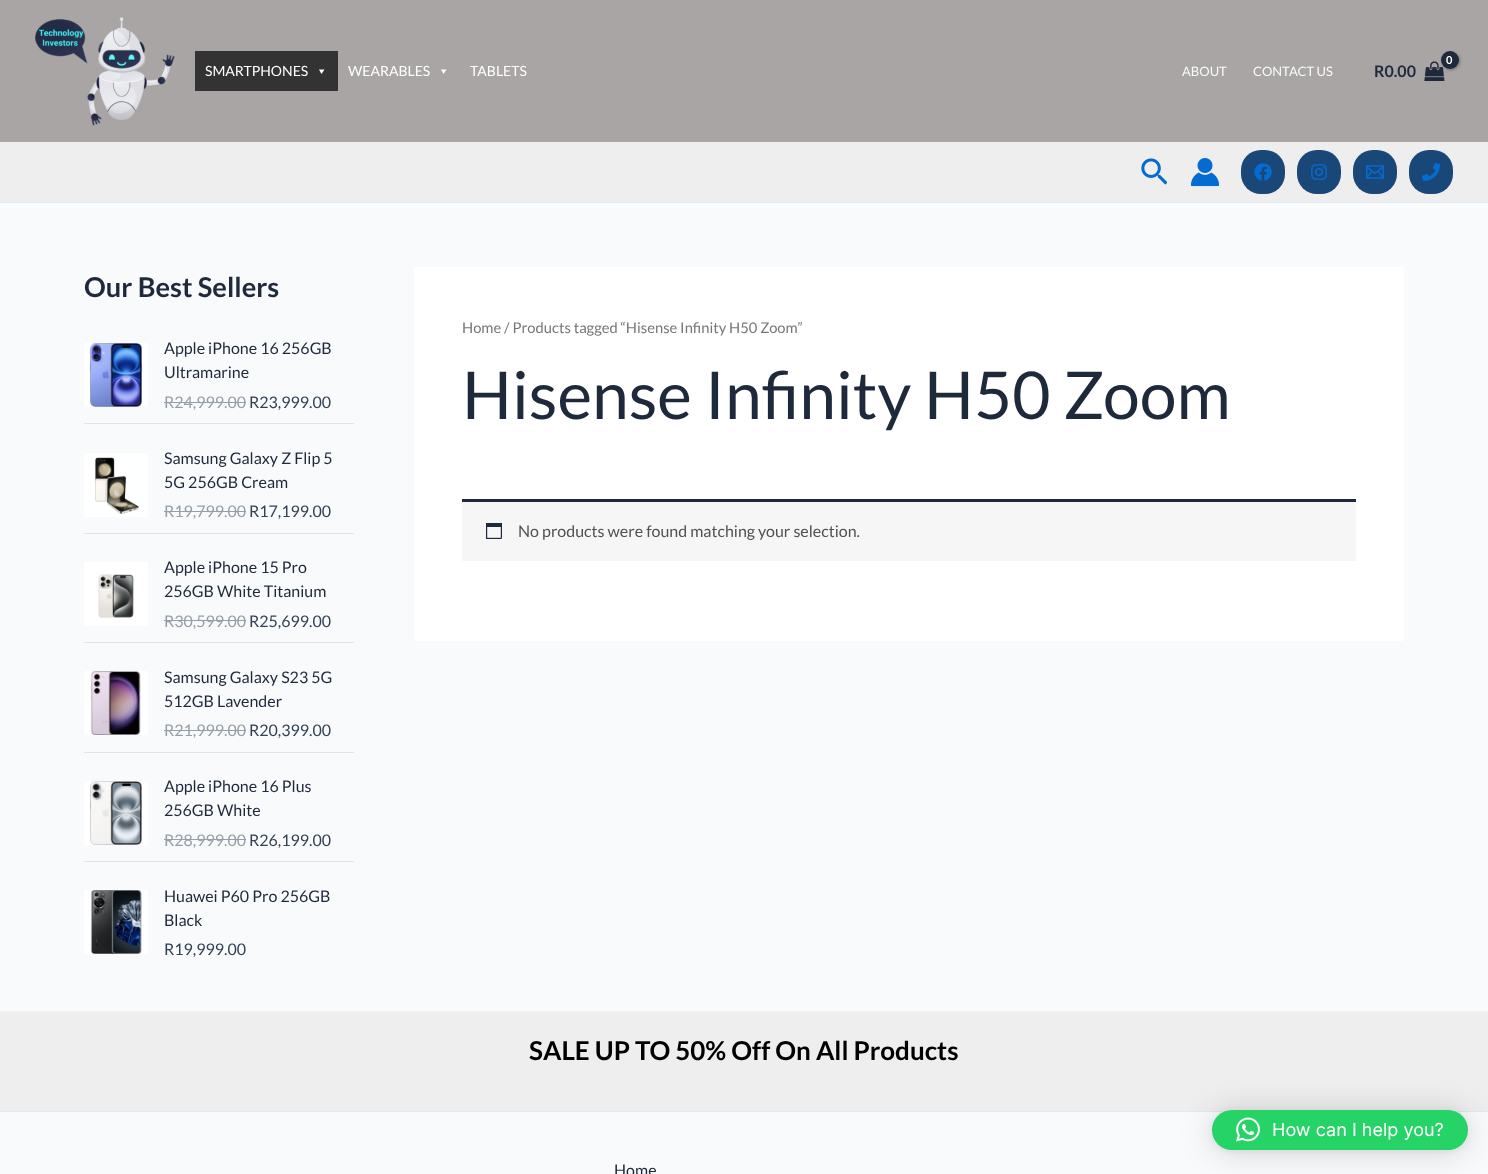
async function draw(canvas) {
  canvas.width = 1488;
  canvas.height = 1174;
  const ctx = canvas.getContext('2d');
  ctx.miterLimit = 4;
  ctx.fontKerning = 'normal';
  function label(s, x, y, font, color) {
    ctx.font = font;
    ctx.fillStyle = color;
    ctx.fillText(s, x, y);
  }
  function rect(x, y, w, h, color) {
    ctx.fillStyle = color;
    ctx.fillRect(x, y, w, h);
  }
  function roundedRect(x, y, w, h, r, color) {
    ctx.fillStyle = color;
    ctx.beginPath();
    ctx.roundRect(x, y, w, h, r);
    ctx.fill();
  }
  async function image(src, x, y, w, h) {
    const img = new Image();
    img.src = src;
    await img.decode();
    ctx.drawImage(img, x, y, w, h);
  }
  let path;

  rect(0, 0, 1488, 1174, '#f9fafb');
  rect(0, 0, 1488, 142, '#a9a5a5');
  await image('assets/img1.png', 35, 17, 140, 109);
  rect(195, 51, 143, 40, '#333');
  label('SMARTPHONES', 205, 76, '14px Lato', '#fff');
  path = new Path2D('M324.5 69.5L321.5 74L319 69.5Z');
  ctx.fill(path);
  label('WEARABLES', 348, 76, '14px Lato', '#fff');
  path = new Path2D('M446.5 69.5L443.5 74L441 69.5Z');
  ctx.fill(path);
  label('TABLETS', 470, 76, '14px Lato', '#fff');
  label('ABOUT', 1182, 76, '13px Lato', '#f9fafb');
  label('CONTACT US', 1253, 76, '13px Lato', '#f9fafb');
  await image('assets/img2.png', 1424, 61, 21, 20);
  ctx.fillStyle = '#0000004d';
  ctx.filter = 'blur(1.5px)';
  ctx.beginPath();
  ctx.roundRect(1442, 52, 18, 18, 9);
  ctx.fill();
  ctx.filter = 'none';
  ctx.fillStyle = '#1e293b';
  ctx.beginPath();
  ctx.arc(1450, 60, 9, 0, 2 * Math.PI);
  ctx.fill();
  label('0', 1446, 64, 'bold 11px Lato', '#fff');
  label('R0.00', 1374, 77, 'bold 16px Lato', '#1e293b');
  rect(0, 142, 1488, 60, '#eee');
  rect(0, 202, 1488, 1, '#e2e8f0');
  await image('assets/img3.png', 1141, 158, 26, 27);
  await image('assets/img4.png', 1191, 158, 29, 29);
  roundedRect(1241, 150, 44, 44, 20, '#194878');
  await image('assets/img5.png', 1254, 163, 18, 18);
  roundedRect(1297, 150, 44, 44, 20, '#194878');
  await image('assets/img6.png', 1311, 164, 16, 16);
  roundedRect(1353, 150, 44, 44, 20, '#194878');
  await image('assets/img7.png', 1366, 165, 18, 14);
  roundedRect(1409, 150, 44, 44, 20, '#194878');
  await image('assets/img8.png', 1422, 163, 18, 18);
  label('Our Best Sellers', 84, 297, 'bold 27.25px Lato', '#1e293b');
  rect(84, 423, 270, 1, '#e4e2e2');
  await image('assets/img9.png', 84, 343, 64, 64);
  label('Apple iPhone 16 256GB', 164, 354, '16px Lato', '#1e293b');
  label('Ultramarine', 164, 378, '16px Lato', '#1e293b');
  label('R24,999.00', 164, 408, '16px Lato', '#969ea8');
  rect(164, 402, 82, 1, '#969ea8');
  label('R23,999.00', 249, 408, '16px Lato', '#334155');
  rect(84, 533, 270, 1, '#e4e2e2');
  await image('assets/img10.png', 84, 453, 64, 64);
  label('Samsung Galaxy Z Flip 5', 164, 464, '16px Lato', '#1e293b');
  label('5G 256GB Cream', 164, 488, '16px Lato', '#1e293b');
  label('R19,799.00', 164, 517, '16px Lato', '#969ea8');
  rect(164, 511, 82, 1, '#969ea8');
  label('R17,199.00', 249, 517, '16px Lato', '#334155');
  rect(84, 642, 270, 1, '#e4e2e2');
  await image('assets/img11.png', 84, 562, 64, 64);
  label('Apple iPhone 15 Pro', 164, 573, '16px Lato', '#1e293b');
  label('256GB White Titanium', 164, 597, '16px Lato', '#1e293b');
  label('R30,599.00', 164, 627, '16px Lato', '#969ea8');
  rect(164, 620, 82, 1, '#969ea8');
  label('R25,699.00', 249, 627, '16px Lato', '#334155');
  rect(84, 752, 270, 1, '#e4e2e2');
  await image('assets/img12.png', 84, 671, 64, 64);
  label('Samsung Galaxy S23 5G', 164, 683, '16px Lato', '#1e293b');
  label('512GB Lavender', 164, 707, '16px Lato', '#1e293b');
  label('R21,999.00', 164, 736, '16px Lato', '#969ea8');
  rect(164, 730, 82, 1, '#969ea8');
  label('R20,399.00', 249, 736, '16px Lato', '#334155');
  rect(84, 861, 270, 1, '#e4e2e2');
  await image('assets/img13.png', 84, 781, 64, 64);
  label('Apple iPhone 16 Plus', 164, 792, '16px Lato', '#1e293b');
  label('256GB White', 164, 816, '16px Lato', '#1e293b');
  label('R28,999.00', 164, 846, '16px Lato', '#969ea8');
  rect(164, 839, 82, 1, '#969ea8');
  label('R26,199.00', 249, 846, '16px Lato', '#334155');
  await image('assets/img14.png', 84, 890, 64, 64);
  label('Huawei P60 Pro 256GB', 164, 902, '16px Lato', '#1e293b');
  label('Black', 164, 926, '16px Lato', '#1e293b');
  label('R19,999.00', 164, 955, '16px Lato', '#334155');
  rect(414, 267, 990, 374, '#fff');
  label('Home / Products tagged “Hisense Infinity H50 Zoom”', 462, 333, '14.75px Lato', '#777');
  label('Hisense Infinity H50 Zoom', 462, 419, '66px Lato', '#1e293b');
  rect(462, 502, 894, 59, '#f7f6f7');
  rect(462, 499, 894, 3, '#1e293b');
  await image('assets/img15.png', 486, 523, 16, 16);
  label('No products were found matching your selection.', 518, 537, '16px Lato', '#515151');
  rect(0, 1011, 1488, 100, '#eee');
  label('SALE UP TO 50% Off On All Products', 529, 1060, 'bold 26px Lato', '#000');
  rect(0, 1111, 1488, 1, '#e2e8f0');
  label('Home', 614, 1176, '16px Lato', '#1e293b');
  ctx.fillStyle = '#00000029';
  ctx.filter = 'blur(16px)';
  ctx.beginPath();
  ctx.roundRect(1212, 1112, 256, 40, 20);
  ctx.fill();
  ctx.filter = 'none';
  ctx.fillStyle = '#0000000f';
  ctx.filter = 'blur(3px)';
  ctx.beginPath();
  ctx.roundRect(1212, 1111, 256, 40, 20);
  ctx.fill();
  ctx.filter = 'none';
  roundedRect(1212, 1110, 256, 40, 20, '#25d366');
  await image('assets/img16.png', 1236, 1117, 24, 25);
  label('How can I help you?', 1272, 1136, '18px Inter', '#fff');
}

draw(document.querySelector('canvas'));
